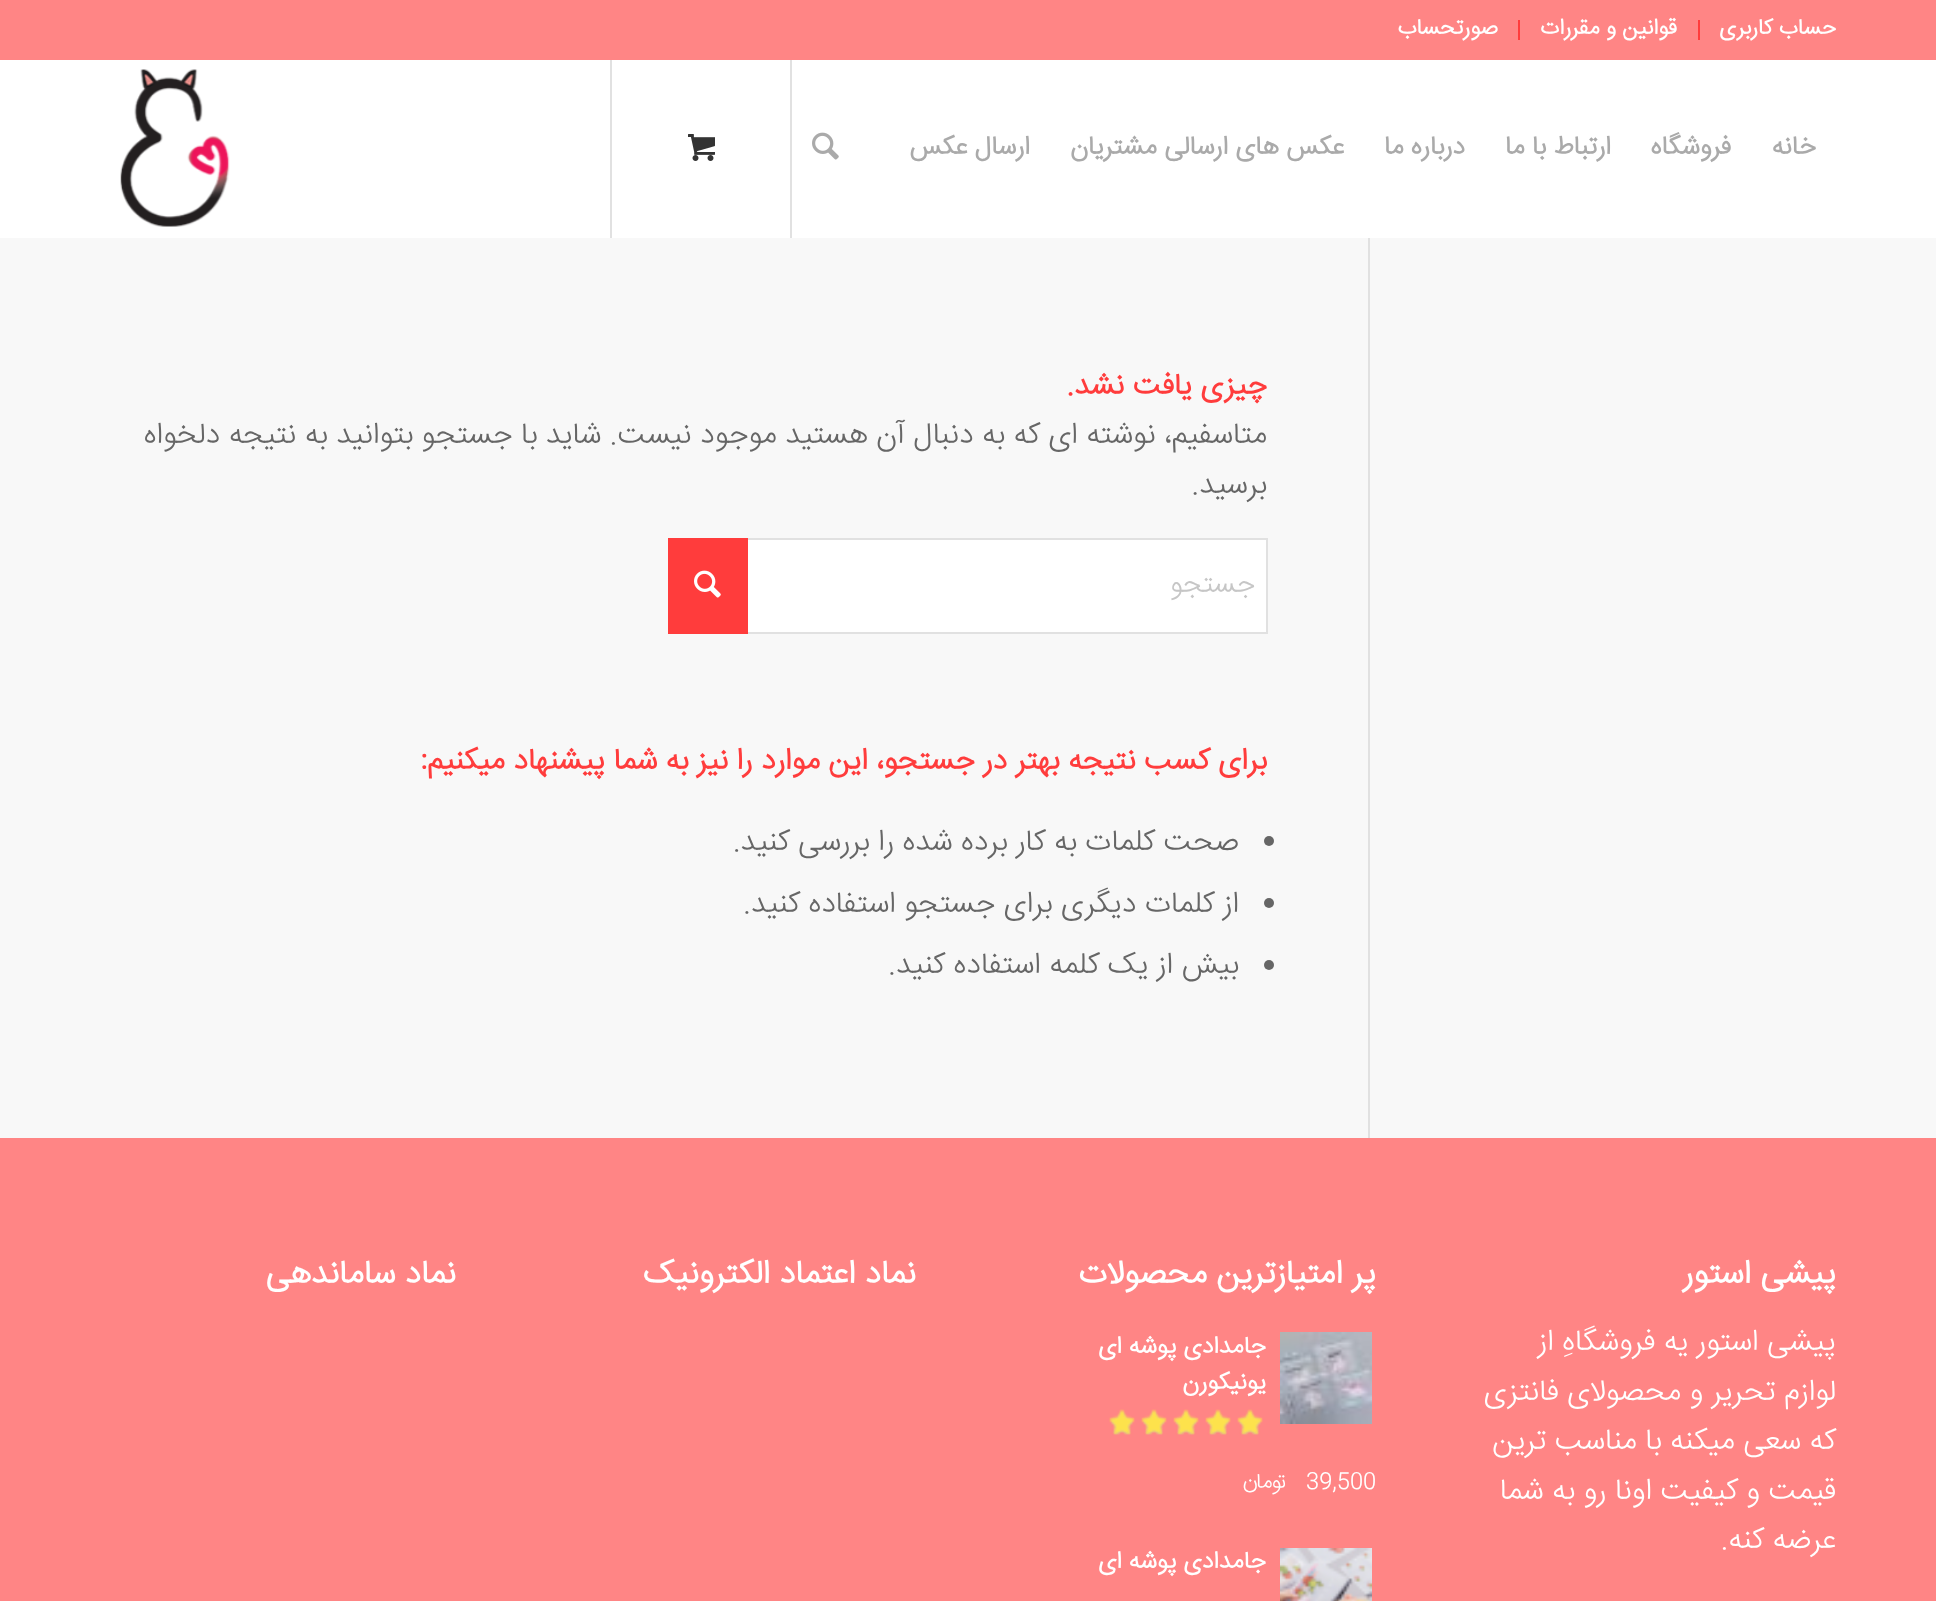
async function draw(canvas) {
  canvas.width = 1936;
  canvas.height = 1601;
  const ctx = canvas.getContext('2d');
  ctx.miterLimit = 4;
  ctx.fontKerning = 'normal';
  function label(s, x, y, font, color) {
    ctx.font = font;
    ctx.fillStyle = color;
    ctx.fillText(s, x, y);
  }
  function rect(x, y, w, h, color) {
    ctx.fillStyle = color;
    ctx.fillRect(x, y, w, h);
  }
  async function image(src, x, y, w, h) {
    const img = new Image();
    img.src = src;
    await img.decode();
    ctx.drawImage(img, x, y, w, h);
  }

  rect(0, 0, 1936, 1601, '#fff');
  rect(790, 58, 2, 180, '#e1e1e1');
  rect(610, 58, 2, 180, '#e1e1e1');
  rect(0, 0, 1936, 60, '#ff8585');
  rect(1698, 20, 2, 20, '#ff3c3c');
  ctx.direction = 'rtl';
  label('حساب کاربری', 1836, 34, 'bold 22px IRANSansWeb', '#fff');
  rect(1518, 20, 2, 20, '#ff3c3c');
  label('قوانین و مقررات', 1677, 34, 'bold 22px IRANSansWeb', '#fff');
  label('صورتحساب', 1498, 34, 'bold 22px IRANSansWeb', '#fff');
  label('خانه', 1816, 154, 'bold 26px IRANSansWeb', '#aaa');
  label('فروشگاه', 1731, 154, 'bold 26px IRANSansWeb', '#aaa');
  label('ارتباط با ما', 1611, 154, 'bold 26px IRANSansWeb', '#aaa');
  label('درباره ما', 1465, 154, 'bold 26px IRANSansWeb', '#aaa');
  label('عکس های ارسالی مشتریان', 1344, 154, 'bold 26px IRANSansWeb', '#aaa');
  label('ارسال عکس', 1030, 154, 'bold 26px IRANSansWeb', '#aaa');
  await image('assets/img1.png', 812, 132, 27, 28);
  await image('assets/img2.png', 688, 134, 27, 27);
  await image('assets/img3.png', 120, 69, 110, 158);
  rect(0, 238, 1936, 900, '#f8f8f8');
  rect(1368, 238, 2, 900, '#e1e1e1');
  label('چیزی یافت نشد.', 1267, 394, 'bold 30px IRANSansWeb', '#ff3c3c');
  label('متاسفیم، نوشته ای که به دنبال آن هستید موجود نیست. شاید با جستجو بتوانید به نتیجه دلخواه', 1267, 443, '300 30px IRANSansWeb', '#666');
  label('برسید.', 1267, 493, '300 30px IRANSansWeb', '#666');
  rect(748, 540, 518, 92, '#fff');
  ctx.strokeStyle = '#e1e1e1';
  ctx.lineWidth = 2;
  ctx.strokeRect(669, 539, 598, 94);
  label('جستجو', 1255, 592, '300 28px IRANSansWeb', '#c6c6c6');
  rect(668, 538, 80, 96, '#ff3c3c');
  await image('assets/img4.png', 694, 570, 27, 28);
  label('برای کسب نتیجه بهتر در جستجو، این موارد را نیز به شما پیشنهاد میکنیم:', 1267, 769, 'bold 30px IRANSansWeb', '#ff3c3c');
  ctx.fillStyle = '#666';
  ctx.beginPath();
  ctx.arc(1269, 841, 5, 0, 2 * Math.PI);
  ctx.fill();
  label('صحت کلمات به کار برده شده را بررسی کنید.', 1239, 850, '300 30px IRANSansWeb', '#666');
  ctx.beginPath();
  ctx.arc(1269, 903, 5, 0, 2 * Math.PI);
  ctx.fill();
  label('از کلمات دیگری برای جستجو استفاده کنید.', 1239, 912, '300 30px IRANSansWeb', '#666');
  ctx.beginPath();
  ctx.arc(1269, 965, 5, 0, 2 * Math.PI);
  ctx.fill();
  label('بیش از یک کلمه استفاده کنید.', 1239, 973, '300 30px IRANSansWeb', '#666');
  rect(0, 1138, 1936, 463, '#ff8585');
  label('پیشی استور', 1836, 1283, 'bold 33px IRANSansWeb', '#fff');
  label('پیشی استور یه فروشگاهِ از', 1836, 1350, '300 30px IRANSansWeb', '#fff');
  label('لوازم تحریر و محصولای فانتزی', 1836, 1400, '300 30px IRANSansWeb', '#fff');
  label('که سعی میکنه با مناسب ترین', 1836, 1449, '300 30px IRANSansWeb', '#fff');
  label('قیمت و کیفیت اونا رو به شما', 1836, 1499, '300 30px IRANSansWeb', '#fff');
  label('عرضه کنه.', 1836, 1548, '300 30px IRANSansWeb', '#fff');
  label('پر امتیازترین محصولات', 1376, 1283, 'bold 33px IRANSansWeb', '#fff');
  await image('assets/img5.png', 1280, 1332, 92, 92);
  label('جامدادی پوشه ای', 1266, 1353, 'bold 24px IRANSansWeb', '#fff');
  label('یونیکورن', 1266, 1389, 'bold 24px IRANSansWeb', '#fff');
  await image('assets/img6.png', 1111, 1411, 150, 24);
  await image('assets/img7.png', 1109, 1409, 154, 26);
  ctx.direction = 'ltr';
  label('39,500', 1306, 1488, '300 22px IRANSansWeb', '#fff');
  ctx.direction = 'rtl';
  label('تومان', 1286, 1488, '300 22px IRANSansWeb', '#fff');
  await image('assets/img8.png', 1280, 1548, 92, 53);
  label('جامدادی پوشه ای', 1266, 1568, 'bold 24px IRANSansWeb', '#fff');
  label('نماد اعتماد الکترونیک', 916, 1283, 'bold 33px IRANSansWeb', '#fff');
  label('نماد ساماندهی', 456, 1283, 'bold 33px IRANSansWeb', '#fff');
}

draw(document.querySelector('canvas'));
